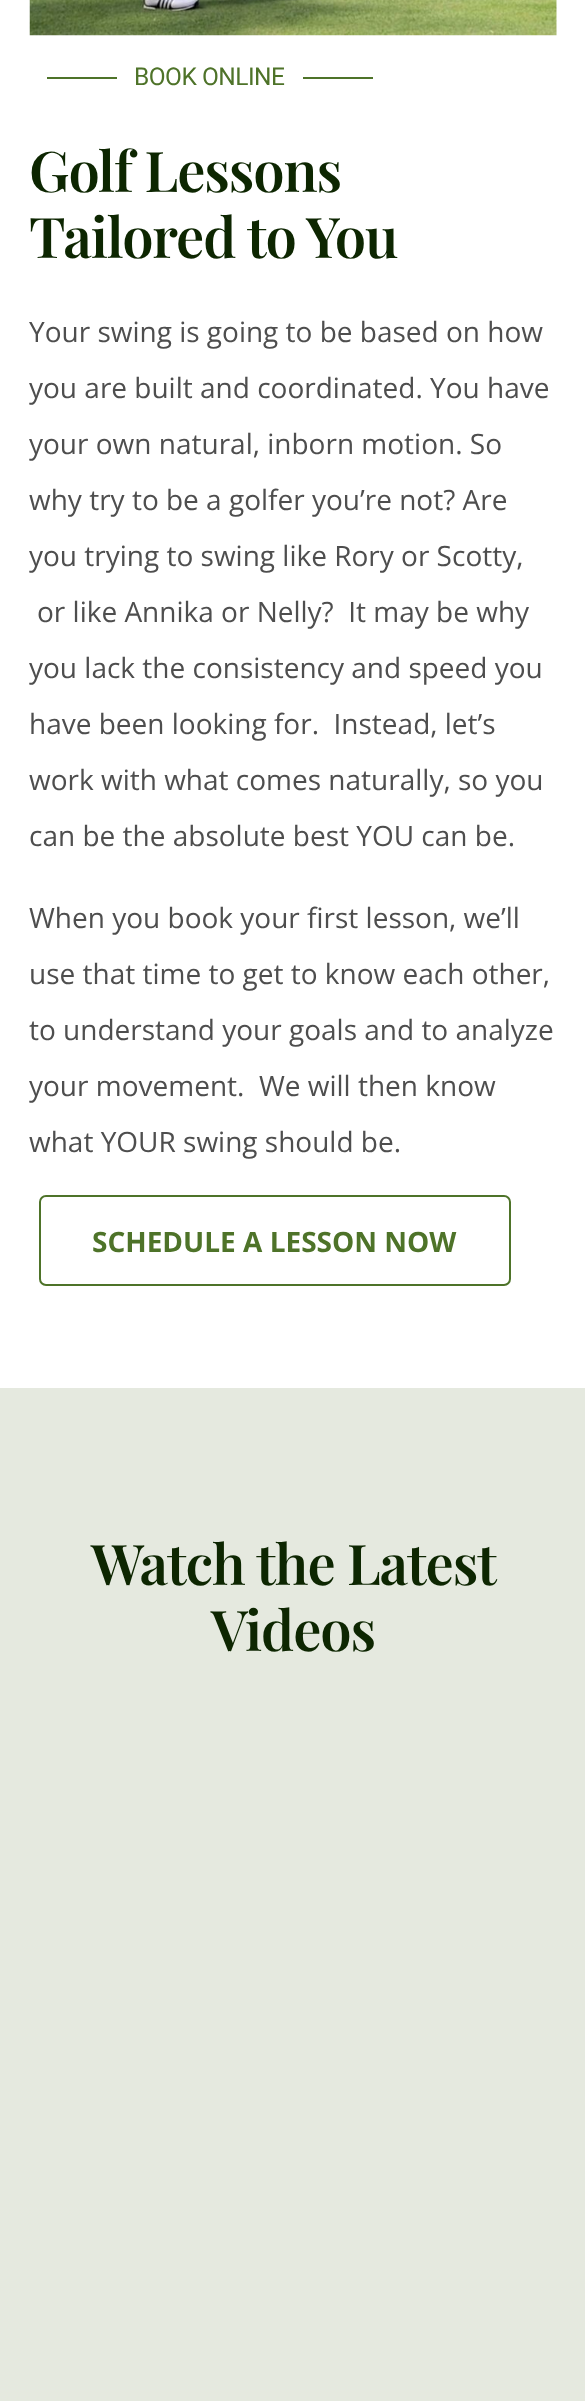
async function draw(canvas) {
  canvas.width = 585;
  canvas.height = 2401;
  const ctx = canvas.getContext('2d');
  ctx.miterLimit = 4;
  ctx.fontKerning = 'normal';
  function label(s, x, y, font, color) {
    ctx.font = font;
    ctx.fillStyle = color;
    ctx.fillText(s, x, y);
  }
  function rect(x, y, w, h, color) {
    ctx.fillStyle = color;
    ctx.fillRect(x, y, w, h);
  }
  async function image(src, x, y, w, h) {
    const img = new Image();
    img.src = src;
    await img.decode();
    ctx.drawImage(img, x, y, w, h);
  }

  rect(0, 0, 585, 2401, '#fff');
  await image('assets/img1.png', 29, 0, 528, 36);
  rect(47, 77, 70, 2, '#4e7329');
  ctx.letterSpacing = '-0.5px';
  label('BOOK ONLINE', 134, 85, '24.5px Roboto', '#4e7329');
  rect(303, 77, 70, 2, '#4e7329');
  ctx.letterSpacing = '-1.1px';
  label('Golf Lessons', 29, 192, '600 56px Playfair Display', '#0d2601');
  label('Tailored to You', 29, 258, '600 56px Playfair Display', '#0d2601');
  ctx.letterSpacing = '0px';
  label('Your swing is going to be based on how', 29, 342, '28px Open Sans', '#4e4e4e');
  label('you are built and coordinated. You have', 29, 398, '28px Open Sans', '#4e4e4e');
  label('your own natural, inborn motion. So', 29, 454, '28px Open Sans', '#4e4e4e');
  label('why try to be a golfer you’re not? Are', 29, 510, '28px Open Sans', '#4e4e4e');
  label('you trying to swing like Rory or Scotty,', 29, 566, '28px Open Sans', '#4e4e4e');
  label('or like Annika or Nelly?  It may be why', 37, 622, '28px Open Sans', '#4e4e4e');
  label('you lack the consistency and speed you', 29, 678, '28px Open Sans', '#4e4e4e');
  label('have been looking for.  Instead, let’s', 29, 734, '28px Open Sans', '#4e4e4e');
  label('work with what comes naturally, so you', 29, 790, '28px Open Sans', '#4e4e4e');
  label('can be the absolute best YOU can be.', 29, 846, '28px Open Sans', '#4e4e4e');
  label('When you book your first lesson, we’ll', 29, 928, '28px Open Sans', '#4e4e4e');
  label('use that time to get to know each other,', 29, 984, '28px Open Sans', '#4e4e4e');
  label('to understand your goals and to analyze', 29, 1040, '28px Open Sans', '#4e4e4e');
  label('your movement.  We will then know', 29, 1096, '28px Open Sans', '#4e4e4e');
  label('what YOUR swing should be.', 29, 1152, '28px Open Sans', '#4e4e4e');
  ctx.beginPath();
  ctx.roundRect(40, 1196, 470, 89, 6);
  ctx.strokeStyle = '#4e7329';
  ctx.lineWidth = 2;
  ctx.stroke();
  label('SCHEDULE A LESSON NOW', 92, 1252, 'bold 28px Open Sans', '#4e7329');
  rect(0, 1388, 585, 1013, '#e5e9df');
  ctx.letterSpacing = '-1.1px';
  label('Watch the Latest', 91, 1585, '600 56px Playfair Display', '#0d2601');
  label('Videos', 211, 1651, '600 56px Playfair Display', '#0d2601');
}

draw(document.querySelector('canvas'));
